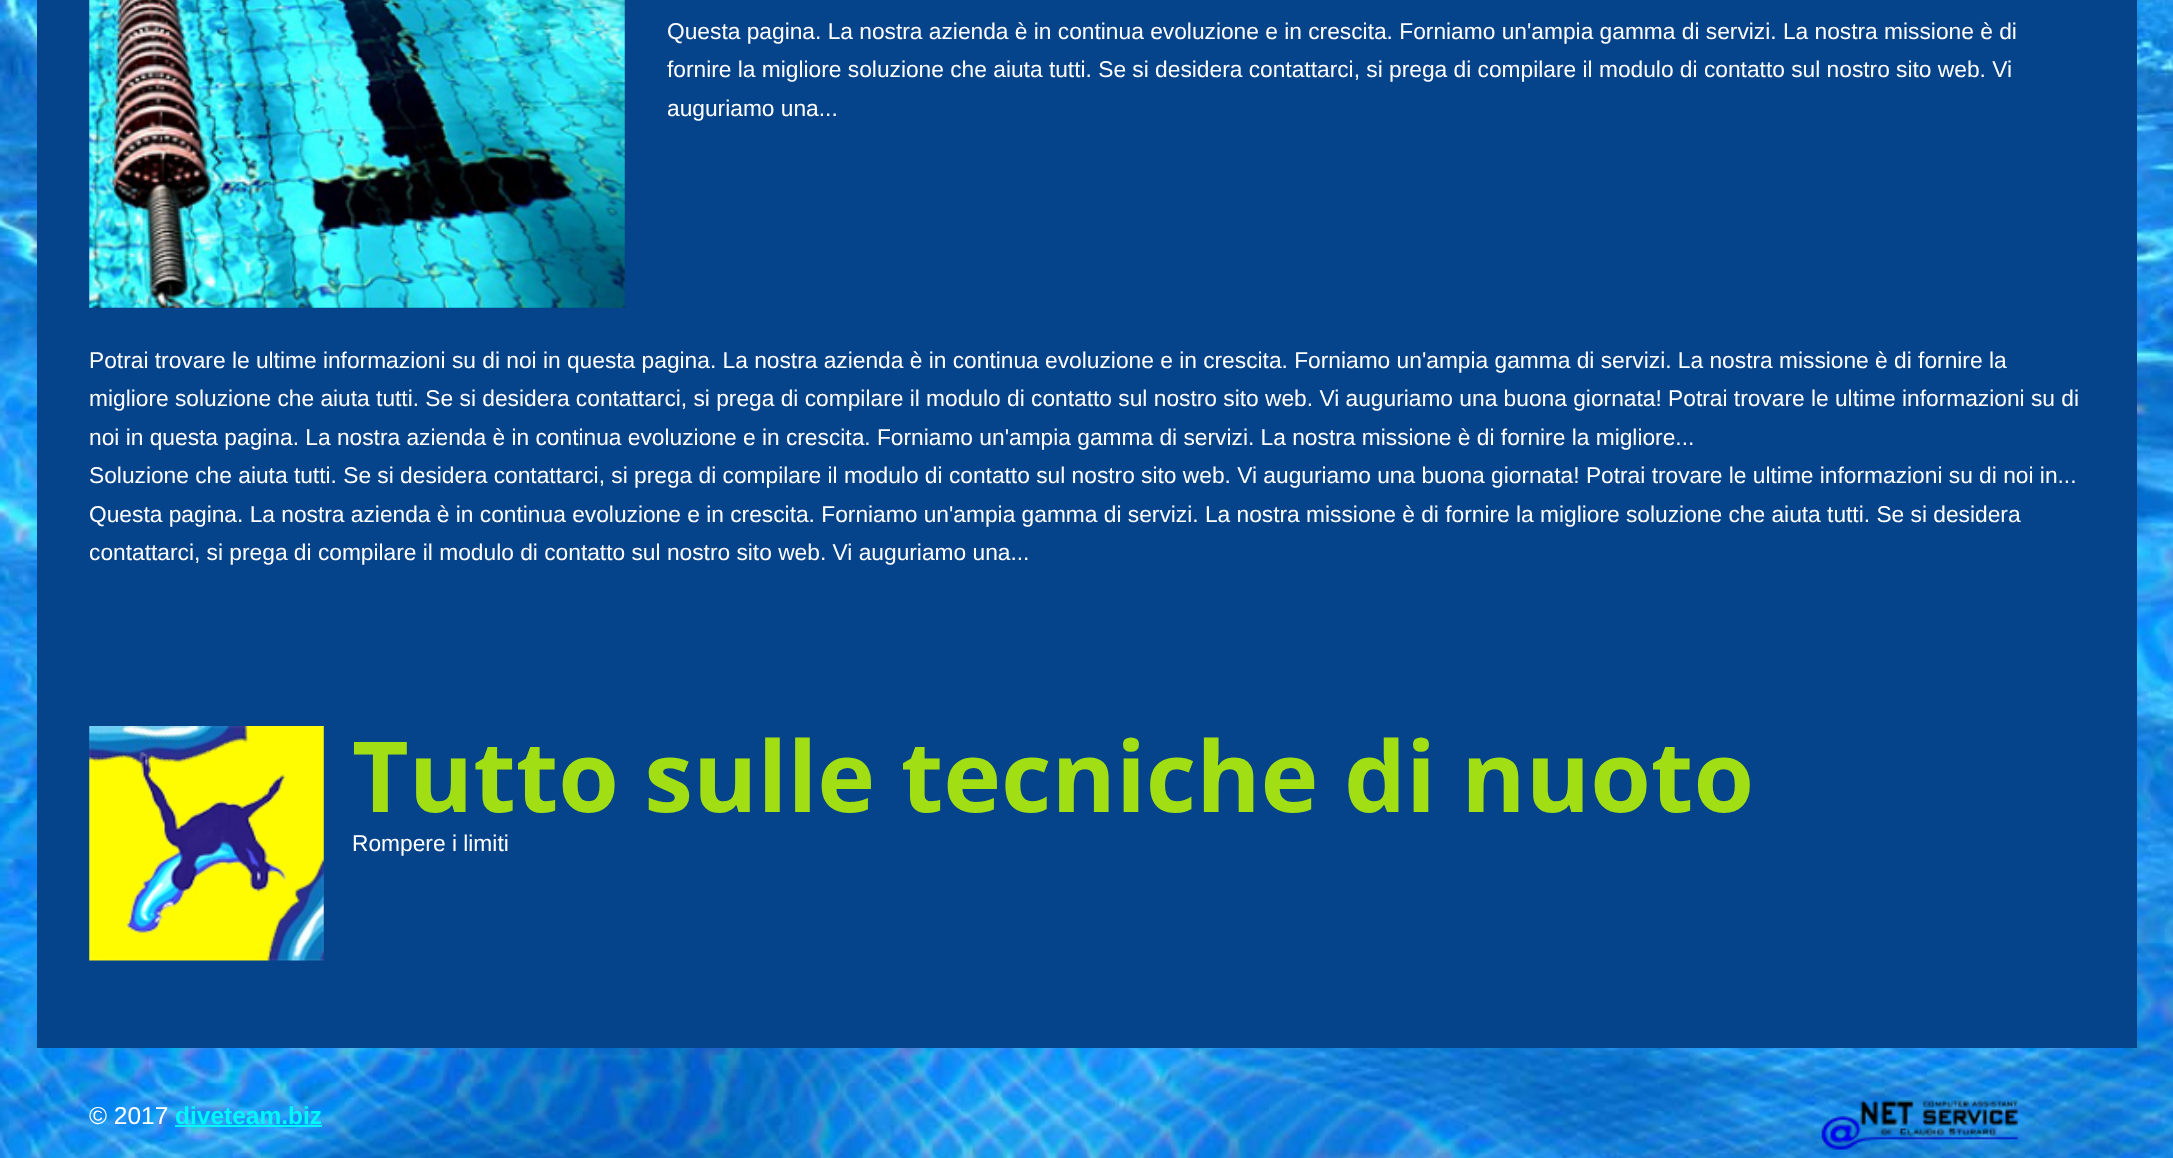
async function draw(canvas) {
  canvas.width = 2173;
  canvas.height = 1158;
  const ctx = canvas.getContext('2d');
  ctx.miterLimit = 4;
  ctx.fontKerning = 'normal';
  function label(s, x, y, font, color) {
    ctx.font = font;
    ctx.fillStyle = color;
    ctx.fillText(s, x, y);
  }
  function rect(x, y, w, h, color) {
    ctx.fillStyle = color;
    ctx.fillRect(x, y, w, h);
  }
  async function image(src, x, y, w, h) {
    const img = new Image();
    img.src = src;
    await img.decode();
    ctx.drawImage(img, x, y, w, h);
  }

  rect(0, 0, 2173, 1158, '#fff');
  await image('assets/img1.png', 0, 0, 2173, 1158);
  rect(37, 0, 2100, 1048, '#05438a');
  await image('assets/img2.png', 89, 0, 536, 308);
  label('Questa pagina. La nostra azienda è in continua evoluzione e in crescita. Forniamo un\'ampia gamma di servizi. La nostra missione è di', 667, 39, '22.75px Liberation Sans', '#fff');
  label('fornire la migliore soluzione che aiuta tutti. Se si desidera contattarci, si prega di compilare il modulo di contatto sul nostro sito web. Vi', 667, 77, '22.75px Liberation Sans', '#fff');
  label('auguriamo una...', 667, 116, '22.75px Liberation Sans', '#fff');
  label('Potrai trovare le ultime informazioni su di noi in questa pagina. La nostra azienda è in continua evoluzione e in crescita. Forniamo un\'ampia gamma di servizi. La nostra missione è di fornire la', 89, 368, '22.75px Liberation Sans', '#fff');
  label('migliore soluzione che aiuta tutti. Se si desidera contattarci, si prega di compilare il modulo di contatto sul nostro sito web. Vi auguriamo una buona giornata! Potrai trovare le ultime informazioni su di', 89, 406, '22.75px Liberation Sans', '#fff');
  label('noi in questa pagina. La nostra azienda è in continua evoluzione e in crescita. Forniamo un\'ampia gamma di servizi. La nostra missione è di fornire la migliore...', 89, 445, '22.75px Liberation Sans', '#fff');
  label('Soluzione che aiuta tutti. Se si desidera contattarci, si prega di compilare il modulo di contatto sul nostro sito web. Vi auguriamo una buona giornata! Potrai trovare le ultime informazioni su di noi in...', 89, 483, '22.75px Liberation Sans', '#fff');
  label('Questa pagina. La nostra azienda è in continua evoluzione e in crescita. Forniamo un\'ampia gamma di servizi. La nostra missione è di fornire la migliore soluzione che aiuta tutti. Se si desidera', 89, 522, '22.75px Liberation Sans', '#fff');
  label('contattarci, si prega di compilare il modulo di contatto sul nostro sito web. Vi auguriamo una...', 89, 560, '22.75px Liberation Sans', '#fff');
  await image('assets/img3.png', 89, 726, 235, 235);
  label('Tutto sulle tecniche di nuoto', 352, 812, 'bold 98px Open Sans', '#a1de14');
  label('Rompere i limiti', 352, 851, '22.75px Liberation Sans', '#fff');
  label('© 2017', 89, 1124, '24.5px Liberation Sans', '#fff');
  label('diveteam.biz', 175, 1124, 'bold 24.5px Liberation Sans', '#00f7ff');
  rect(175, 1125, 147, 2, '#00f7ff');
  await image('assets/img4.png', 1821, 1100, 197, 50);
}

draw(document.querySelector('canvas'));
